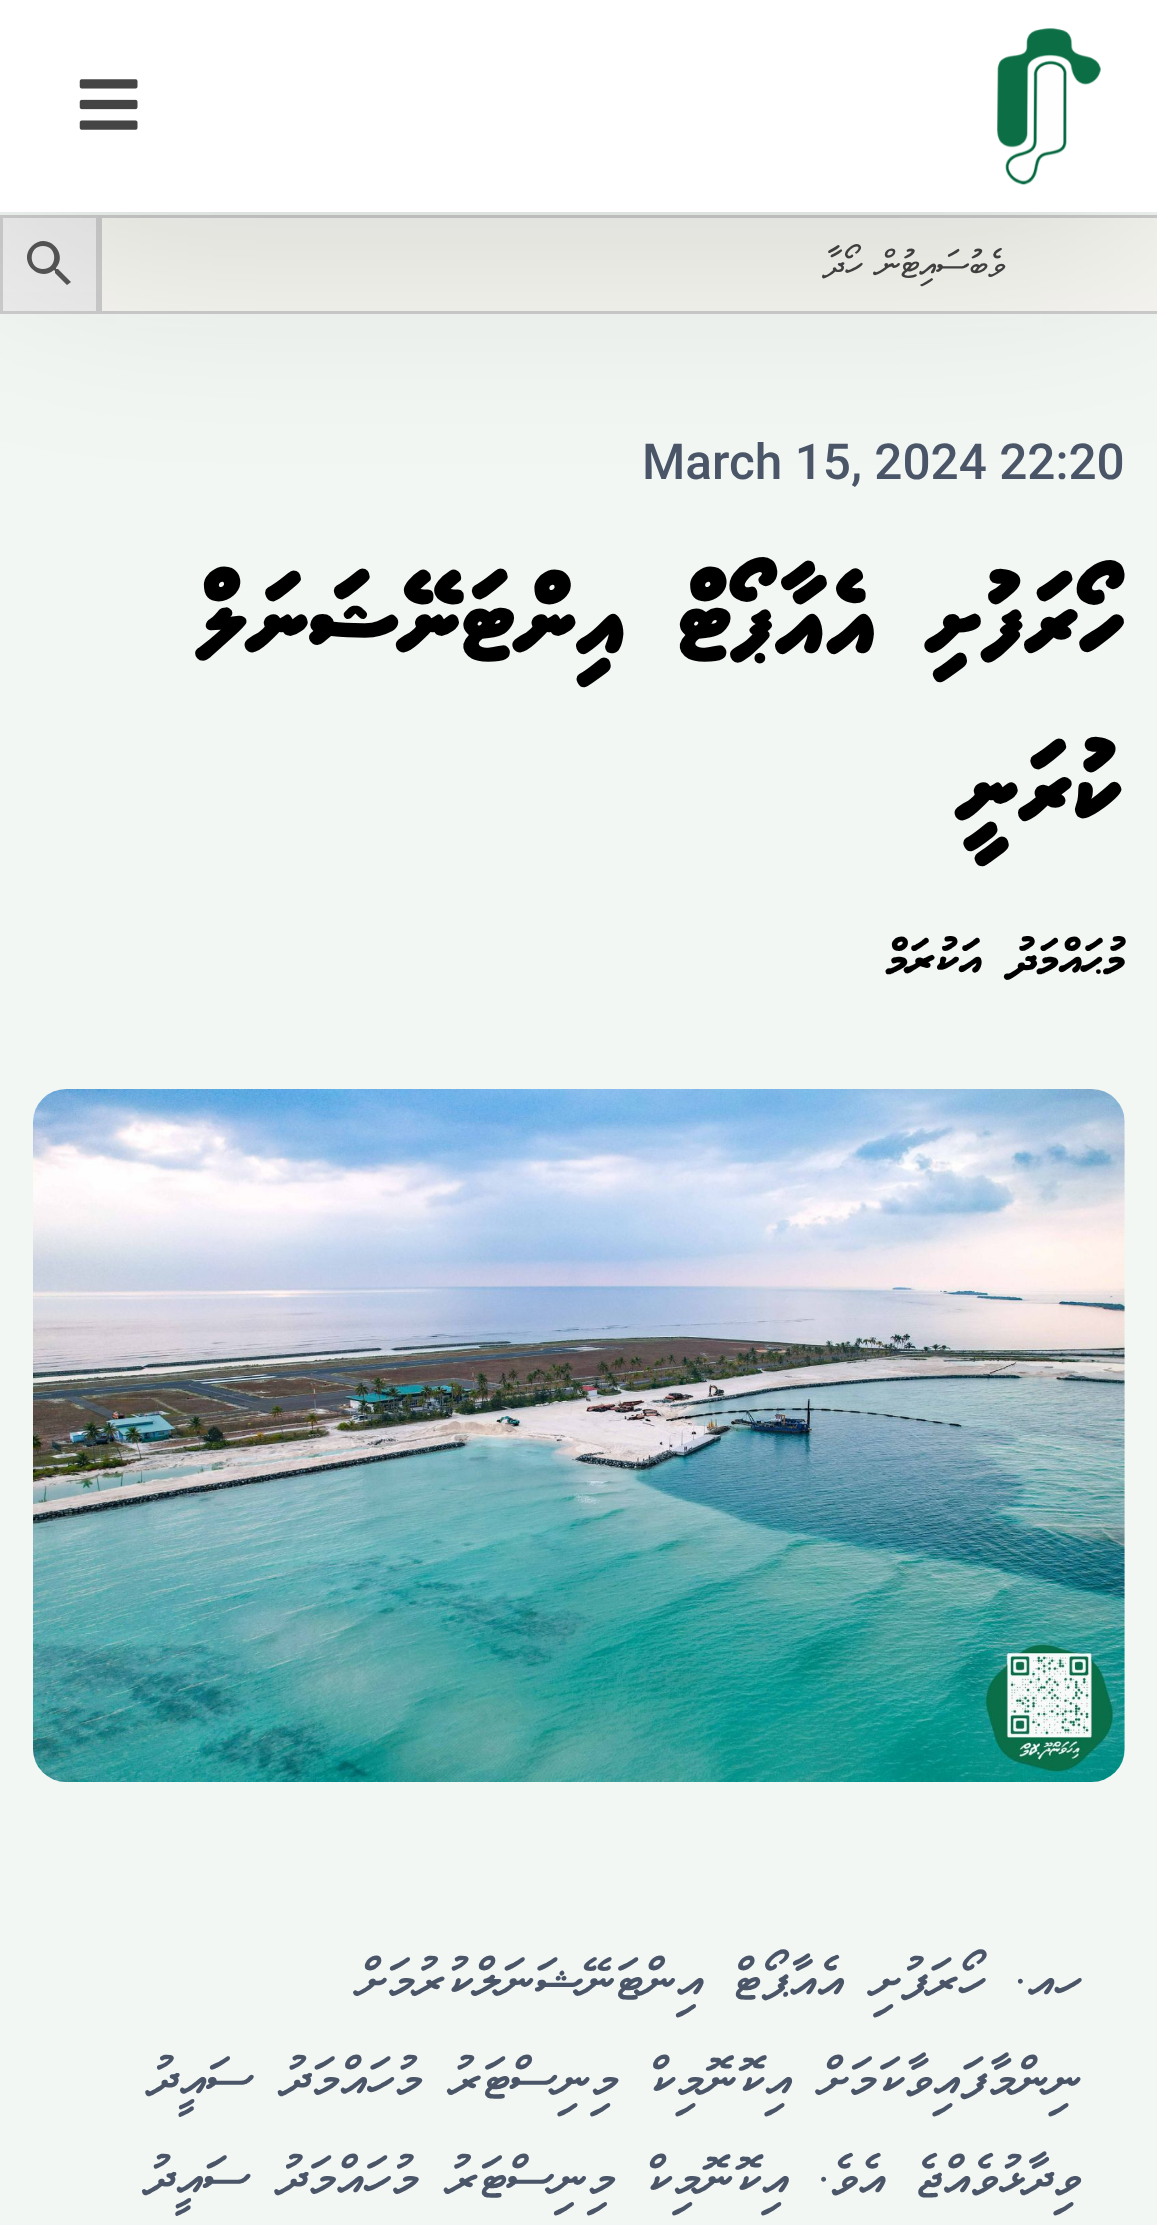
async function draw(canvas) {
  canvas.width = 1157;
  canvas.height = 2225;
  const ctx = canvas.getContext('2d');
  ctx.miterLimit = 4;
  ctx.fontKerning = 'normal';
  function label(s, x, y, font, color) {
    ctx.font = font;
    ctx.fillStyle = color;
    ctx.fillText(s, x, y);
  }
  function rect(x, y, w, h, color) {
    ctx.fillStyle = color;
    ctx.fillRect(x, y, w, h);
  }
  async function image(src, x, y, w, h) {
    const img = new Image();
    img.src = src;
    await img.decode();
    ctx.drawImage(img, x, y, w, h);
  }
  let path;

  rect(0, 0, 1157, 2225, '#f3f7f4');
  rect(102, 218, 1055, 93, '#f7f6f2');
  rect(99, 215, 1058, 3, '#ccc');
  rect(99, 311, 1058, 3, '#ccc');
  rect(99, 215, 3, 99, '#ccc');
  ctx.fillStyle = '#ededed';
  ctx.beginPath();
  ctx.rect(1.5, 216.5, 96, 96);
  ctx.fill();
  ctx.strokeStyle = '#ccc';
  ctx.lineWidth = 3;
  ctx.stroke();
  ctx.fillStyle = '#555';
  path = new Path2D('M58 269H56V268C69 253 47 231 32 246C17 261 39 283 54 270L55 271V273L67 285L71 282ZM43 269C28 269 28 246 43 246C58 246 58 269 43 269Z');
  ctx.fill(path);
  ctx.fillStyle = '#000e022e';
  ctx.filter = 'blur(122.5px)';
  ctx.beginPath();
  ctx.rect(0, 0, 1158, 212);
  ctx.fill();
  ctx.filter = 'none';
  rect(0, 0, 1157, 212, '#fff');
  await image('assets/img1.png', 997, 28, 104, 157);
  await image('assets/img2.png', 79, 79, 59, 51);
  ctx.direction = 'rtl';
  label('ވެބުސައިޓުން ހޯދާ', 1006, 278, '38.5px FreeSerif', '#3f3f3f');
  ctx.direction = 'ltr';
  label('March 15, 2024 22:20', 642, 479, '500 49.5px Roboto', '#4a5568');
  ctx.direction = 'rtl';
  label('ހޯރަފުށި އެއާޕޯޓް އިންޓަނޭޝަނަލް', 1125, 649, '99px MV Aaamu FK', '#000');
  label('ކުރަނީ', 1125, 817, '99px MV Aaamu FK', '#000');
  label('މުޙައްމަދު އަކުރަމް', 1125, 972, '52.25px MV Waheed', '#000');
  await image('assets/img3.png', 33, 1089, 1092, 693);
  label('ހއ. ހޯރަފުށި އެއާޕޯޓް އިންޓަނޭޝަނަލްކުރުމަށް', 1081, 1993, '49.5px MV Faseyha', '#4a5568');
  label('ނިންމާފައިވާކަމަށް އިކޮނޮމިކް މިނިސްޓަރު މުހައްމަދު ސައީދު', 1081, 2092, '49.5px MV Faseyha', '#4a5568');
  label('ވިދާޅުވެއްޖެ އެވެ. އިކޮނޮމިކް މިނިސްޓަރު މުހައްމަދު ސައީދު', 1081, 2191, '49.5px MV Faseyha', '#4a5568');
}

draw(document.querySelector('canvas'));
